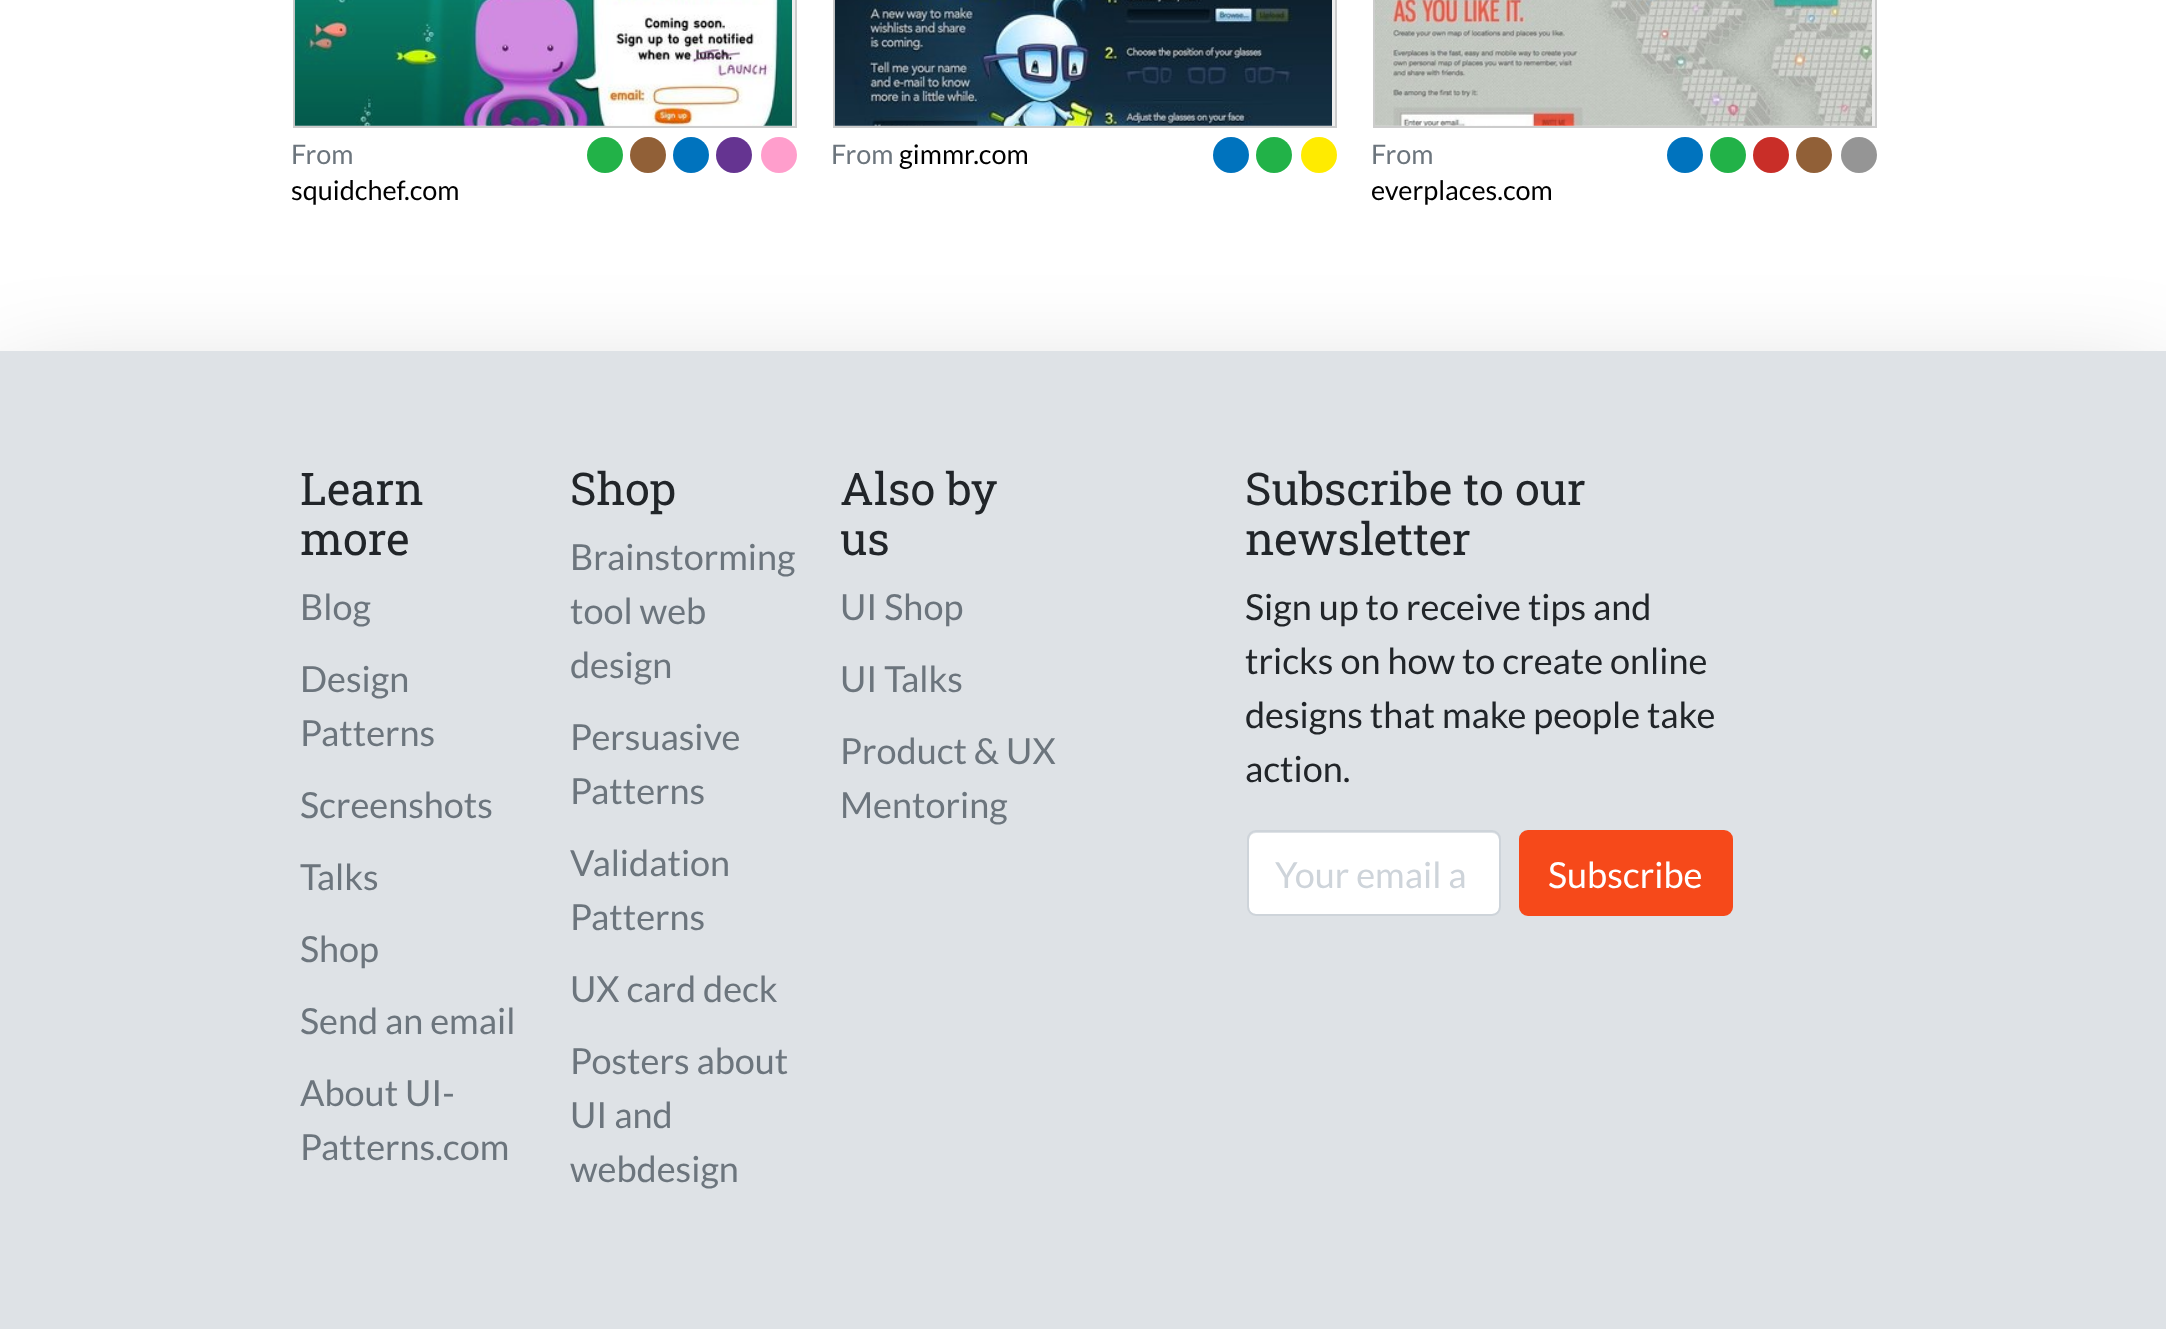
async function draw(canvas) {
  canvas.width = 2166;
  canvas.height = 1329;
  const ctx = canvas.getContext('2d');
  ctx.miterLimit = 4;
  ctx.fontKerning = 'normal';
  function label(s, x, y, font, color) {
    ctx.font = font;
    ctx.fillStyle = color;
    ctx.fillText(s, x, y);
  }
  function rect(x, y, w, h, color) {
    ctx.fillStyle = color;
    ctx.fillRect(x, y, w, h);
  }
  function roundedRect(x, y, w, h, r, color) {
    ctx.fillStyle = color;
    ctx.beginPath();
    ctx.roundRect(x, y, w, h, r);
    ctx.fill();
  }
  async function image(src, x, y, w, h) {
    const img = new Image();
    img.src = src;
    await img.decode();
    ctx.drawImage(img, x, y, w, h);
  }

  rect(0, 0, 2166, 1329, '#fff');
  ctx.fillStyle = '#eee';
  ctx.beginPath();
  ctx.rect(294, -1, 502, 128);
  ctx.fill();
  ctx.strokeStyle = '#ccc';
  ctx.lineWidth = 2;
  ctx.stroke();
  await image('assets/img1.png', 294, 0, 498, 126);
  label('From', 291, 164, '27px Lato', '#6c757d');
  label('squidchef.com', 291, 200, '27px Lato', '#000');
  ctx.fillStyle = '#22b248';
  ctx.beginPath();
  ctx.arc(605, 155, 18, 0, 2 * Math.PI);
  ctx.fill();
  ctx.fillStyle = '#916037';
  ctx.beginPath();
  ctx.arc(648, 155, 18, 0, 2 * Math.PI);
  ctx.fill();
  ctx.fillStyle = '#0073be';
  ctx.beginPath();
  ctx.arc(691, 155, 18, 0, 2 * Math.PI);
  ctx.fill();
  ctx.fillStyle = '#653491';
  ctx.beginPath();
  ctx.arc(734, 155, 18, 0, 2 * Math.PI);
  ctx.fill();
  ctx.fillStyle = '#ff9ecc';
  ctx.beginPath();
  ctx.arc(779, 155, 18, 0, 2 * Math.PI);
  ctx.fill();
  ctx.fillStyle = '#eee';
  ctx.beginPath();
  ctx.rect(834, -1, 502, 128);
  ctx.fill();
  ctx.stroke();
  await image('assets/img2.png', 834, 0, 498, 126);
  label('From', 831, 164, '27px Lato', '#6c757d');
  label('gimmr.com', 899, 164, '27px Lato', '#000');
  ctx.fillStyle = '#0073be';
  ctx.beginPath();
  ctx.arc(1231, 155, 18, 0, 2 * Math.PI);
  ctx.fill();
  ctx.fillStyle = '#22b248';
  ctx.beginPath();
  ctx.arc(1274, 155, 18, 0, 2 * Math.PI);
  ctx.fill();
  ctx.fillStyle = '#ffeb00';
  ctx.beginPath();
  ctx.arc(1319, 155, 18, 0, 2 * Math.PI);
  ctx.fill();
  ctx.fillStyle = '#eee';
  ctx.beginPath();
  ctx.rect(1374, -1, 502, 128);
  ctx.fill();
  ctx.stroke();
  await image('assets/img3.png', 1375, 0, 497, 126);
  label('From', 1371, 164, '27px Lato', '#6c757d');
  label('everplaces.com', 1371, 200, '27px Lato', '#000');
  ctx.fillStyle = '#0073be';
  ctx.beginPath();
  ctx.arc(1685, 155, 18, 0, 2 * Math.PI);
  ctx.fill();
  ctx.fillStyle = '#22b248';
  ctx.beginPath();
  ctx.arc(1728, 155, 18, 0, 2 * Math.PI);
  ctx.fill();
  ctx.fillStyle = '#c92e28';
  ctx.beginPath();
  ctx.arc(1771, 155, 18, 0, 2 * Math.PI);
  ctx.fill();
  ctx.fillStyle = '#916037';
  ctx.beginPath();
  ctx.arc(1814, 155, 18, 0, 2 * Math.PI);
  ctx.fill();
  ctx.fillStyle = '#959595';
  ctx.beginPath();
  ctx.arc(1859, 155, 18, 0, 2 * Math.PI);
  ctx.fill();
  ctx.fillStyle = '#0000002e';
  ctx.filter = 'blur(54px)';
  ctx.beginPath();
  ctx.rect(0, 387, 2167, 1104);
  ctx.fill();
  ctx.filter = 'none';
  rect(0, 351, 2166, 978, '#dee2e6');
  label('Learn', 300, 505, '45px Roboto Slab', '#212529');
  label('more', 300, 555, '45px Roboto Slab', '#212529');
  label('Blog', 300, 620, '36px Lato', '#6c757d');
  label('Design', 300, 692, '36px Lato', '#6c757d');
  label('Patterns', 300, 746, '36px Lato', '#6c757d');
  label('Screenshots', 300, 818, '36px Lato', '#6c757d');
  label('Talks', 300, 890, '36px Lato', '#6c757d');
  label('Shop', 300, 962, '36px Lato', '#6c757d');
  label('Send an email', 300, 1034, '36px Lato', '#6c757d');
  label('About UI-', 300, 1106, '36px Lato', '#6c757d');
  label('Patterns.com', 300, 1160, '36px Lato', '#6c757d');
  label('Shop', 570, 505, '45px Roboto Slab', '#212529');
  label('Brainstorming', 570, 570, '36px Lato', '#6c757d');
  label('tool web', 570, 624, '36px Lato', '#6c757d');
  label('design', 570, 678, '36px Lato', '#6c757d');
  label('Persuasive', 570, 750, '36px Lato', '#6c757d');
  label('Patterns', 570, 804, '36px Lato', '#6c757d');
  label('Validation', 570, 876, '36px Lato', '#6c757d');
  label('Patterns', 570, 930, '36px Lato', '#6c757d');
  label('UX card deck', 570, 1002, '36px Lato', '#6c757d');
  label('Posters about', 570, 1074, '36px Lato', '#6c757d');
  label('UI and', 570, 1128, '36px Lato', '#6c757d');
  label('webdesign', 570, 1182, '36px Lato', '#6c757d');
  label('Also by', 840, 505, '45px Roboto Slab', '#212529');
  label('us', 840, 555, '45px Roboto Slab', '#212529');
  label('UI Shop', 840, 620, '36px Lato', '#6c757d');
  label('UI Talks', 840, 692, '36px Lato', '#6c757d');
  label('Product & UX', 840, 764, '36px Lato', '#6c757d');
  label('Mentoring', 840, 818, '36px Lato', '#6c757d');
  label('Subscribe to our', 1245, 505, '45px Roboto Slab', '#212529');
  label('newsletter', 1245, 555, '45px Roboto Slab', '#212529');
  label('Sign up to receive tips and', 1245, 620, '36px Lato', '#212529');
  label('tricks on how to create online', 1245, 674, '36px Lato', '#212529');
  label('designs that make people take', 1245, 728, '36px Lato', '#212529');
  label('action.', 1245, 782, '36px Lato', '#212529');
  roundedRect(1249, 833, 250, 81, 7, '#fff');
  ctx.beginPath();
  ctx.roundRect(1248, 831, 252, 84, 8);
  ctx.strokeStyle = '#ced4da';
  ctx.stroke();
  label('Your email a', 1275, 888, '36px Lato', '#ced4da');
  ctx.fillStyle = '#f6491a';
  ctx.beginPath();
  ctx.roundRect(1520, 831, 212, 84, 8);
  ctx.fill();
  ctx.strokeStyle = '#f6491a';
  ctx.stroke();
  label('Subscribe', 1548, 888, '36px Lato', '#fff');
}

draw(document.querySelector('canvas'));
